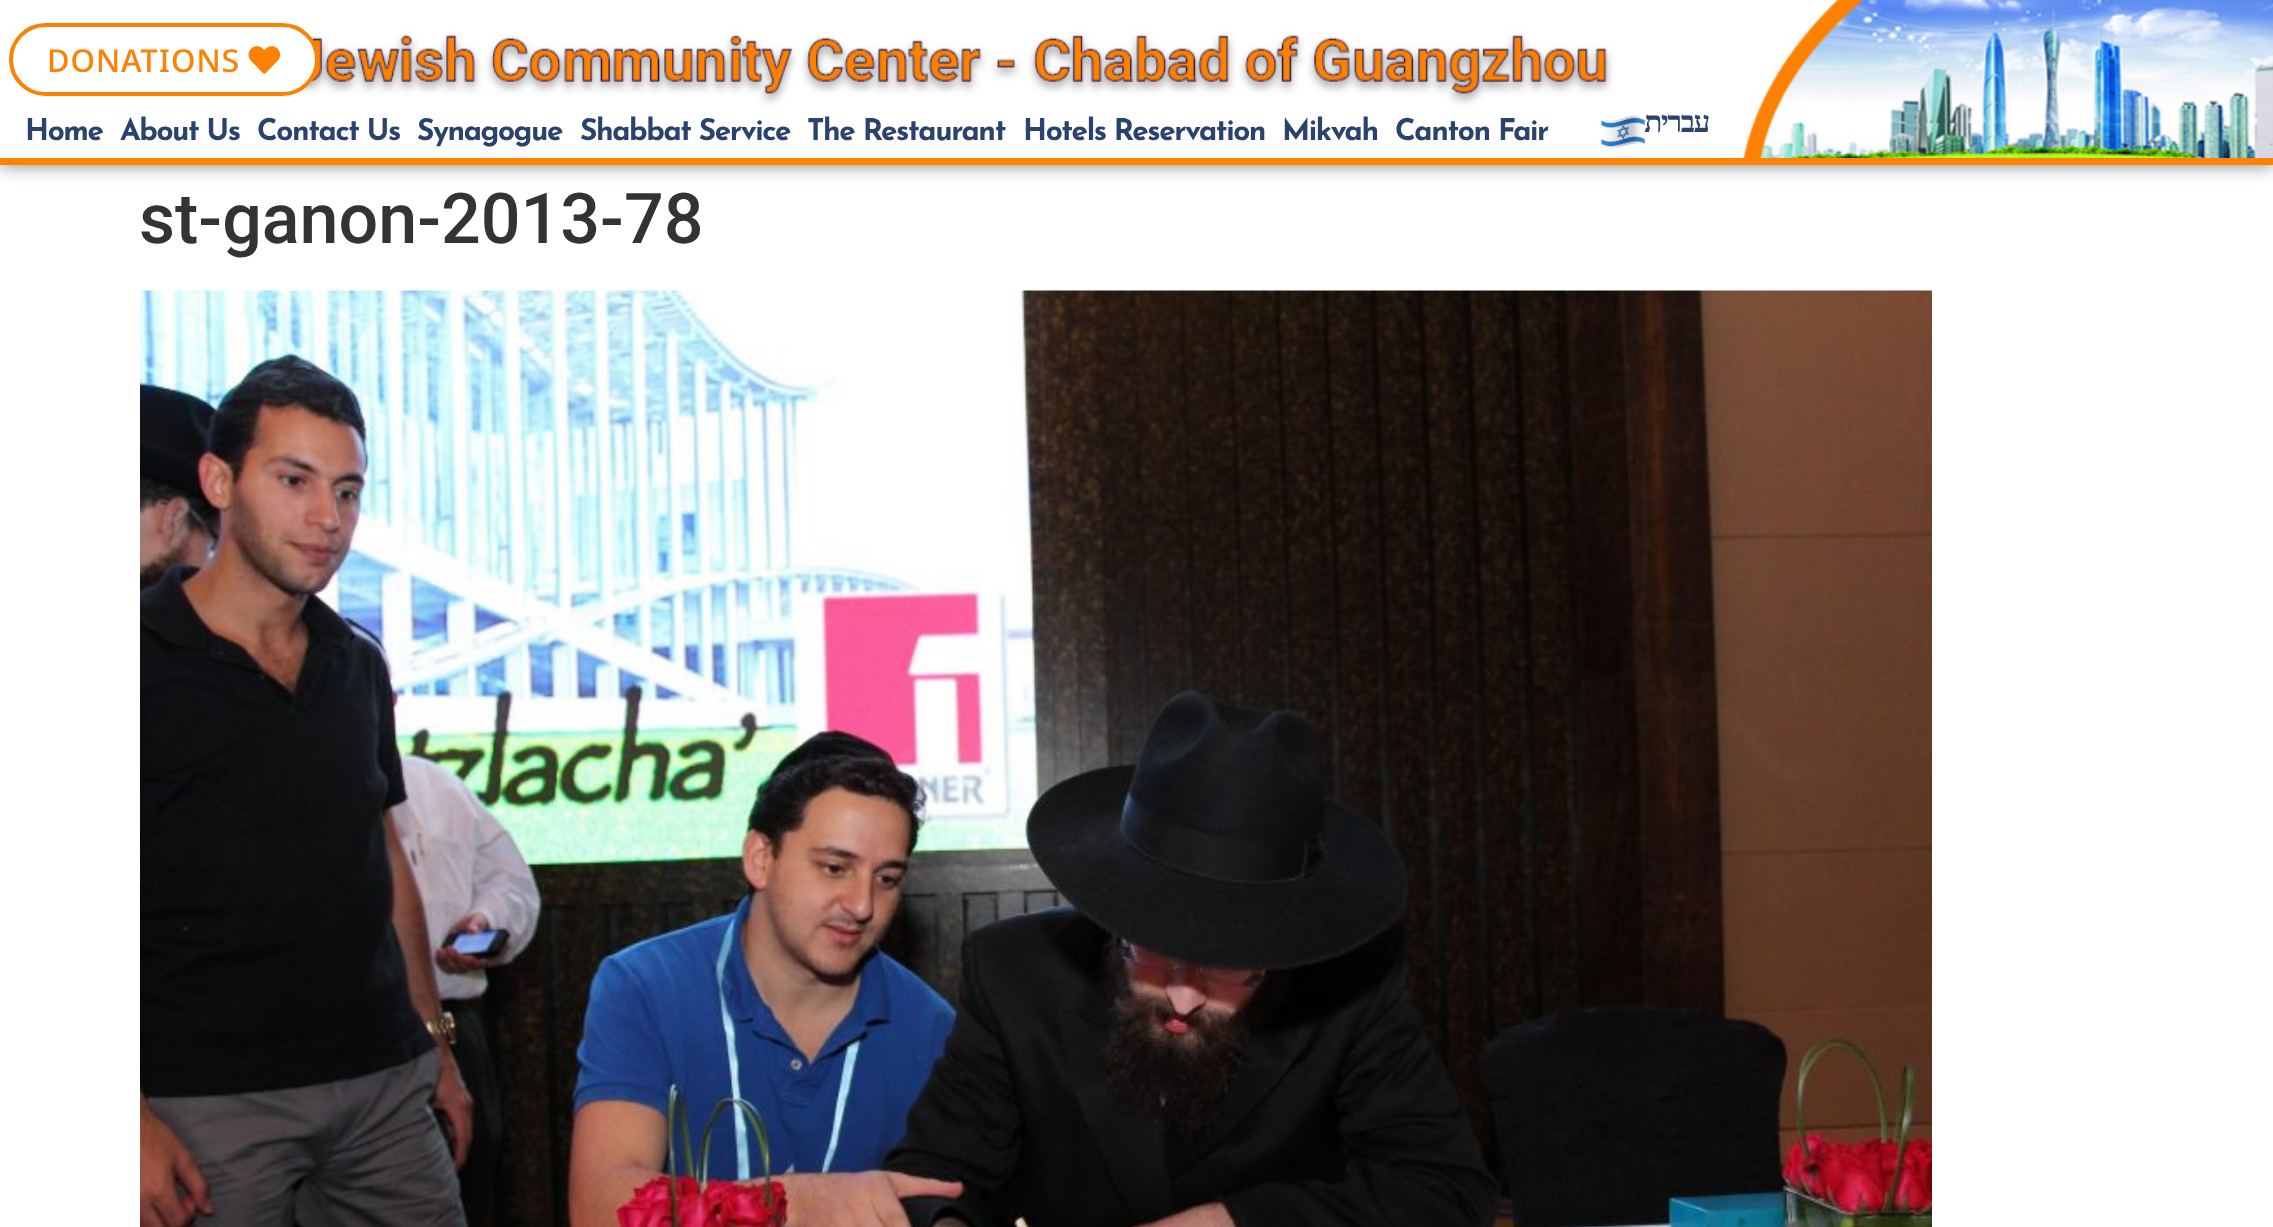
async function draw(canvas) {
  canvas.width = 2273;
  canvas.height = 1227;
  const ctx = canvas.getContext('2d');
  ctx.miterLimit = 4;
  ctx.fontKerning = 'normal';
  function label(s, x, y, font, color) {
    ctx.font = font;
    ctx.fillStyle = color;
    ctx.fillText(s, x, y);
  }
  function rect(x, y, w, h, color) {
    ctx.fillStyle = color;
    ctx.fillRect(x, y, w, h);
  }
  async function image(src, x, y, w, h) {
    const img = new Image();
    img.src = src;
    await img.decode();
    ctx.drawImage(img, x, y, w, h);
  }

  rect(0, 0, 2273, 1227, '#fff');
  ctx.fillStyle = '#00000080';
  ctx.filter = 'blur(9px)';
  ctx.beginPath();
  ctx.rect(0, 0, 2273, 165);
  ctx.fill();
  ctx.filter = 'none';
  await image('assets/img1.png', 0, 0, 2273, 158);
  rect(0, 158, 2273, 7, '#fd8204');
  ctx.fillStyle = '#fff';
  ctx.beginPath();
  ctx.roundRect(11, 25, 306, 69, 34.5);
  ctx.fill();
  ctx.strokeStyle = '#fd8204';
  ctx.lineWidth = 4;
  ctx.stroke();
  ctx.letterSpacing = '1px';
  label('DONATIONS', 47, 72, '500 31.5px Noto Sans Hebrew', '#fd8204');
  await image('assets/img2.png', 248, 46, 33, 28);
  ctx.letterSpacing = '-1.4px';
  label('Home', 25, 140, 'bold 29.75px Josefin Sans', '#2a426e');
  label('About Us', 120, 140, 'bold 29.75px Josefin Sans', '#2a426e');
  label('Contact Us', 257, 140, 'bold 29.75px Josefin Sans', '#2a426e');
  label('Synagogue', 417, 140, 'bold 29.75px Josefin Sans', '#2a426e');
  label('Shabbat Service', 580, 140, 'bold 29.75px Josefin Sans', '#2a426e');
  label('The Restaurant', 807, 140, 'bold 29.75px Josefin Sans', '#2a426e');
  label('Hotels Reservation', 1023, 140, 'bold 29.75px Josefin Sans', '#2a426e');
  label('Mikvah', 1282, 140, 'bold 29.75px Josefin Sans', '#2a426e');
  label('Canton Fair', 1395, 140, 'bold 29.75px Josefin Sans', '#2a426e');
  await image('assets/img3.png', 1600, 115, 45, 34);
  ctx.direction = 'rtl';
  label('עברית', 1709, 132, 'bold 29.75px Liberation Serif', '#2a426e');
  ctx.letterSpacing = '0px';
  ctx.direction = 'ltr';
  label('st-ganon-2013-78', 139, 243, '500 70px Roboto', '#333');
  await image('assets/img4.png', 140, 290, 1792, 937);
}

draw(document.querySelector('canvas'));
